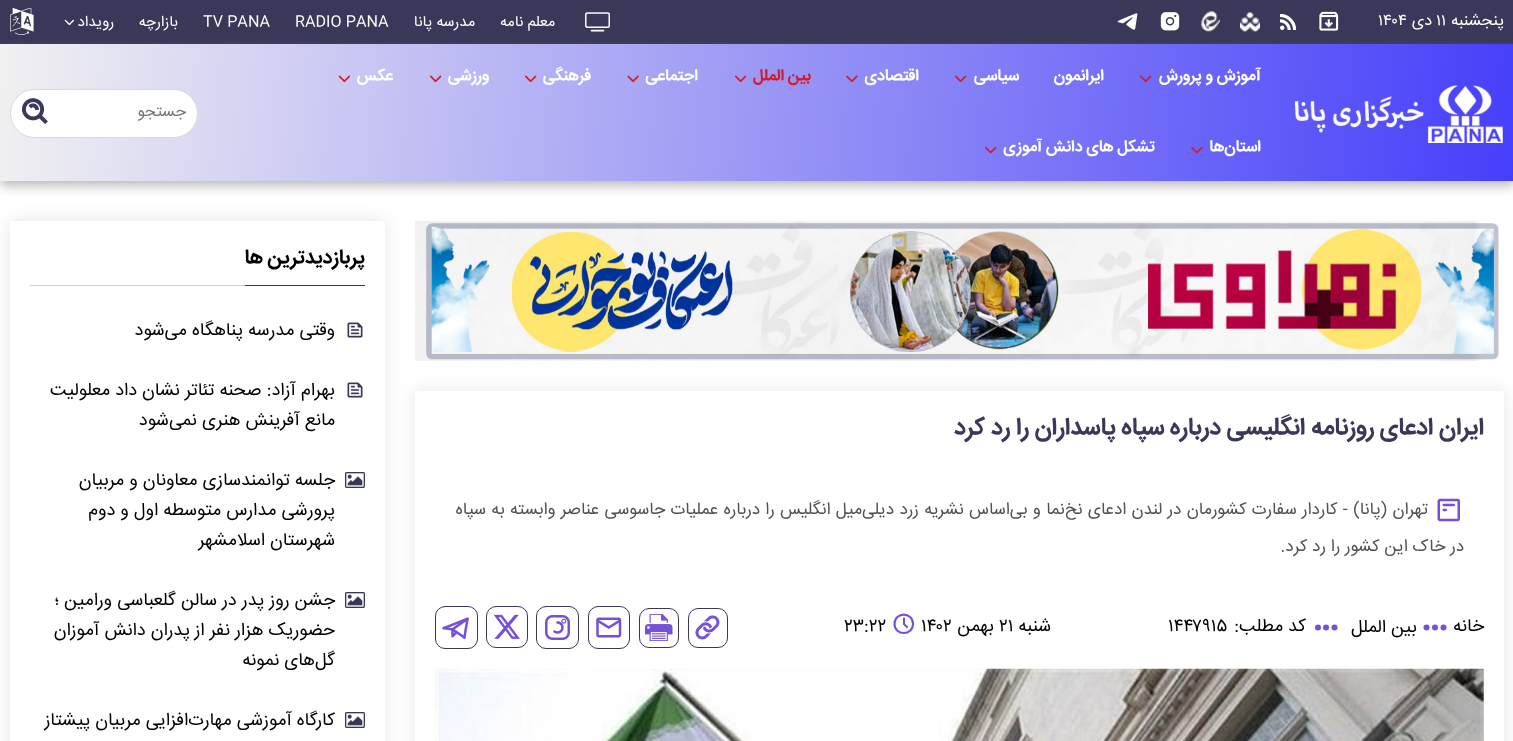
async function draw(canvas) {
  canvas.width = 1513;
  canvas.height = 741;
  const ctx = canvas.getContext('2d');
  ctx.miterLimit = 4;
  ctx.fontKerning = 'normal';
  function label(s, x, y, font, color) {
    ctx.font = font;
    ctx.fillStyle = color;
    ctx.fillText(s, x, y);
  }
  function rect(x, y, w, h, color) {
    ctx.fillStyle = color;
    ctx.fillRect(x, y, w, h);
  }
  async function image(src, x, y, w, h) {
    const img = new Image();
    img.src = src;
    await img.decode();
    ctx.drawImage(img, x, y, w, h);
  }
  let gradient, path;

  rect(0, 0, 1513, 741, '#fff');
  rect(0, 0, 1513, 44, '#393858');
  ctx.direction = 'rtl';
  label('پنجشنبه', 1504, 25, '16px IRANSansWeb', '#fff');
  ctx.direction = 'ltr';
  label('۱۱', 1436, 25, '16px IRANSansWeb', '#fff');
  ctx.direction = 'rtl';
  label('دی', 1432, 25, '16px IRANSansWeb', '#fff');
  ctx.direction = 'ltr';
  label('۱۴۰۴', 1378, 25, '16px IRANSansWeb', '#fff');
  await image('assets/img1.png', 1319, 11, 20, 20);
  await image('assets/img2.png', 1280, 14, 16, 16);
  ctx.fillStyle = '#7d7d7d87';
  ctx.filter = 'blur(5.5px)';
  ctx.beginPath();
  ctx.rect(0, 49, 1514, 137);
  ctx.fill();
  ctx.filter = 'none';
  await image('assets/img3.png', 1240, 12, 20, 20);
  await image('assets/img4.png', 1201, 11, 19, 21);
  await image('assets/img5.png', 1160, 12, 20, 19);
  await image('assets/img6.png', 1117, 13, 21, 17);
  await image('assets/img7.png', 585, 12, 25, 20);
  ctx.direction = 'rtl';
  label('معلم نامه', 555, 26, '15px IRANSansWeb', '#fff');
  label('مدرسه پانا', 475, 26, '15px IRANSansWeb', '#fff');
  ctx.direction = 'ltr';
  label('RADIO PANA', 295, 26, '15px IRANSansWeb', '#fff');
  label('TV PANA', 203, 26, '15px IRANSansWeb', '#fff');
  ctx.direction = 'rtl';
  label('بازارچه', 178, 26, '15px IRANSansWeb', '#fff');
  label('رویداد', 114, 26, '15px IRANSansWeb', '#fff');
  await image('assets/img8.png', 64, 19, 10, 7);
  await image('assets/img9.png', 10, 8, 24, 27);
  gradient = ctx.createLinearGradient(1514, 179, -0.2, 46);
  gradient.addColorStop(0, '#463ffa');
  gradient.addColorStop(1, '#f1f1f1');
  ctx.fillStyle = gradient;
  ctx.fillRect(0, 44, 1513, 137);
  await image('assets/img10.png', 1295, 85, 208, 58);
  label('آموزش و پرورش', 1261, 80, 'bold 16px IRANSansWeb', '#fff');
  await image('assets/img11.png', 1140, 75, 12, 8);
  label('ایرانمون', 1104, 80, 'bold 16px IRANSansWeb', '#fff');
  label('سیاسی', 1019, 80, 'bold 16px IRANSansWeb', '#fff');
  await image('assets/img12.png', 955, 75, 12, 8);
  label('اقتصادی', 919, 80, 'bold 16px IRANSansWeb', '#fff');
  await image('assets/img13.png', 846, 75, 12, 8);
  label('بین الملل', 811, 80, 'bold 16px IRANSansWeb', '#d51b29');
  await image('assets/img14.png', 735, 75, 12, 8);
  label('اجتماعی', 698, 80, 'bold 16px IRANSansWeb', '#fff');
  await image('assets/img15.png', 627, 75, 12, 8);
  label('فرهنگی', 591, 80, 'bold 16px IRANSansWeb', '#fff');
  await image('assets/img16.png', 525, 75, 12, 8);
  label('ورزشی', 489, 80, 'bold 16px IRANSansWeb', '#fff');
  await image('assets/img17.png', 430, 75, 12, 8);
  label('عکس', 393, 80, 'bold 16px IRANSansWeb', '#fff');
  await image('assets/img18.png', 338, 75, 12, 8);
  label('استان‌ها', 1261, 151, 'bold 16px IRANSansWeb', '#fff');
  await image('assets/img19.png', 1191, 146, 12, 8);
  label('تشکل های دانش آموزی', 1155, 151, 'bold 16px IRANSansWeb', '#fff');
  await image('assets/img20.png', 985, 146, 12, 8);
  ctx.beginPath();
  ctx.roundRect(10.5, 89.5, 187, 48, 24);
  ctx.fill();
  ctx.strokeStyle = '#d9d9d9';
  ctx.stroke();
  label('جستجو', 186, 116, '16px IRANSansWeb', '#757575');
  await image('assets/img21.png', 22, 98, 26, 26);
  await image('assets/img22.png', 415, 221, 1084, 140);
  ctx.save();
  path = new Path2D('M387 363H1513V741H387ZM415 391H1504V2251H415Z');
  ctx.clip(path, 'evenodd');
  ctx.fillStyle = '#0000001a';
  ctx.filter = 'blur(9px)';
  ctx.beginPath();
  ctx.rect(415, 391, 1089, 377);
  ctx.fill();
  ctx.filter = 'none';
  ctx.restore();
  label('ایران ادعای ‌روزنامه انگلیسی درباره سپاه پاسداران را رد کرد', 1484, 434, 'bold 24px IRANSansWeb', '#393858');
  await image('assets/img23.png', 1437, 498, 23, 24);
  ctx.wordSpacing = '0.5px';
  label('تهران (پانا) - کاردار سفارت کشورمان در لندن ادعای نخ‌نما و بی‌اساس نشریه زرد دیلی‌میل انگلیس را درباره عملیات جاسوسی عناصر وابسته به سپاه', 1428, 514, '17px IRANSansWeb', '#515151');
  ctx.wordSpacing = '0px';
  label('در خاک این کشور را رد کرد.', 1464, 551, '17px IRANSansWeb', '#515151');
  label('خانه', 1484, 631, '18px IRANSansWeb', '#000');
  ctx.fillStyle = '#7650db';
  ctx.beginPath();
  ctx.arc(1443.5, 627.5, 3, 0, 2 * Math.PI);
  ctx.fill();
  ctx.beginPath();
  ctx.arc(1435, 627.5, 3, 0, 2 * Math.PI);
  ctx.fill();
  ctx.beginPath();
  ctx.arc(1426.5, 627.5, 3, 0, 2 * Math.PI);
  ctx.fill();
  label('بین الملل', 1417, 632, '18px IRANSansWeb', '#000');
  ctx.fillStyle = '#7650db';
  ctx.beginPath();
  ctx.arc(1318, 627.5, 3, 0, 2 * Math.PI);
  ctx.fill();
  ctx.beginPath();
  ctx.arc(1326, 627.5, 3, 0, 2 * Math.PI);
  ctx.fill();
  ctx.beginPath();
  ctx.arc(1334.5, 627.5, 3, 0, 2 * Math.PI);
  ctx.fill();
  label('کد مطلب:', 1306, 631, '18px IRANSansWeb', '#000');
  ctx.direction = 'ltr';
  label('۱۴۴۷۹۱۵', 1168, 631, '18px IRANSansWeb', '#000');
  ctx.direction = 'rtl';
  label('شنبه', 1051, 631, '18px IRANSansWeb', '#000');
  ctx.direction = 'ltr';
  label('۲۱', 999, 631, '18px IRANSansWeb', '#000');
  ctx.direction = 'rtl';
  label('بهمن', 994, 631, '18px IRANSansWeb', '#000');
  ctx.direction = 'ltr';
  label('۱۴۰۲', 921, 631, '18px IRANSansWeb', '#000');
  path = new Path2D('M894.5 624C894.5 636 913 636 913 624C913 611.5 894.5 611.5 894.5 624M904 618.5V624L907 627');
  ctx.strokeStyle = '#7650db';
  ctx.lineWidth = 2.1;
  ctx.lineCap = 'round';
  ctx.lineJoin = 'round';
  ctx.stroke(path);
  label('۲۳:۲۲', 844, 631, '18px IRANSansWeb', '#000');
  ctx.beginPath();
  ctx.roundRect(688.5, 608.5, 39, 39, 9.5);
  ctx.strokeStyle = '#393858';
  ctx.lineWidth = 1;
  ctx.lineJoin = 'miter';
  ctx.stroke();
  await image('assets/img24.png', 695, 615, 25, 25);
  ctx.beginPath();
  ctx.roundRect(639.5, 608.5, 39, 39, 9.5);
  ctx.stroke();
  await image('assets/img25.png', 645, 614, 28, 27);
  ctx.beginPath();
  ctx.roundRect(588.5, 606.5, 41, 42, 9.5);
  ctx.stroke();
  await image('assets/img26.png', 596, 617, 26, 21);
  ctx.beginPath();
  ctx.roundRect(536.5, 606.5, 42, 42, 9.5);
  ctx.stroke();
  await image('assets/img27.png', 545, 615, 25, 25);
  ctx.beginPath();
  ctx.roundRect(486.5, 606.5, 41, 41, 9.5);
  ctx.stroke();
  await image('assets/img28.png', 493, 614, 27, 25);
  ctx.beginPath();
  ctx.roundRect(435.5, 606.5, 42, 42, 9.5);
  ctx.stroke();
  await image('assets/img29.png', 442, 617, 27, 22);
  await image('assets/img30.png', 435, 668, 1049, 73);
  ctx.fillStyle = '#0000001a';
  ctx.filter = 'blur(9px)';
  ctx.beginPath();
  ctx.rect(10, 221, 375, 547);
  ctx.fill();
  ctx.filter = 'none';
  rect(10, 221, 375, 520, '#fff');
  rect(30, 285, 215, 1, '#cfcfcf');
  rect(245, 285, 120, 1, '#393858');
  ctx.direction = 'rtl';
  label('پربازدیدترین ها', 365, 263, 'bold 20px IRANSansWeb', '#000');
  await image('assets/img31.png', 347, 322, 16, 16);
  label('وقتی مدرسه پناهگاه می‌شود', 335, 335, '18px IRANSansWeb', '#000');
  await image('assets/img31.png', 347, 382, 16, 16);
  label('بهرام آزاد: صحنه تئاتر نشان داد معلولیت', 335, 395, '18px IRANSansWeb', '#000');
  label('مانع آفرینش هنری نمی‌شود', 335, 425, '18px IRANSansWeb', '#000');
  await image('assets/img32.png', 345, 472, 20, 16);
  label('جلسه توانمندسازی معاونان و مربیان', 335, 485, '18px IRANSansWeb', '#000');
  label('پرورشی مدارس متوسطه اول و دوم', 335, 515, '18px IRANSansWeb', '#000');
  label('شهرستان اسلامشهر', 335, 545, '18px IRANSansWeb', '#000');
  await image('assets/img32.png', 345, 592, 20, 16);
  label('جشن روز پدر در سالن گلعباسی ورامین ؛', 335, 605, '18px IRANSansWeb', '#000');
  label('حضوریک هزار نفر از', 335, 635, '18px IRANSansWeb', '#000');
  label('پدران دانش آموزان', 190, 635, '18px IRANSansWeb', '#000');
  label('گل‌های نمونه', 335, 665, '18px IRANSansWeb', '#000');
  await image('assets/img32.png', 345, 712, 20, 16);
  label('کارگاه آموزشی مهارت‌افزایی مربیان پیشتاز', 335, 725, '18px IRANSansWeb', '#000');
}

draw(document.querySelector('canvas'));
